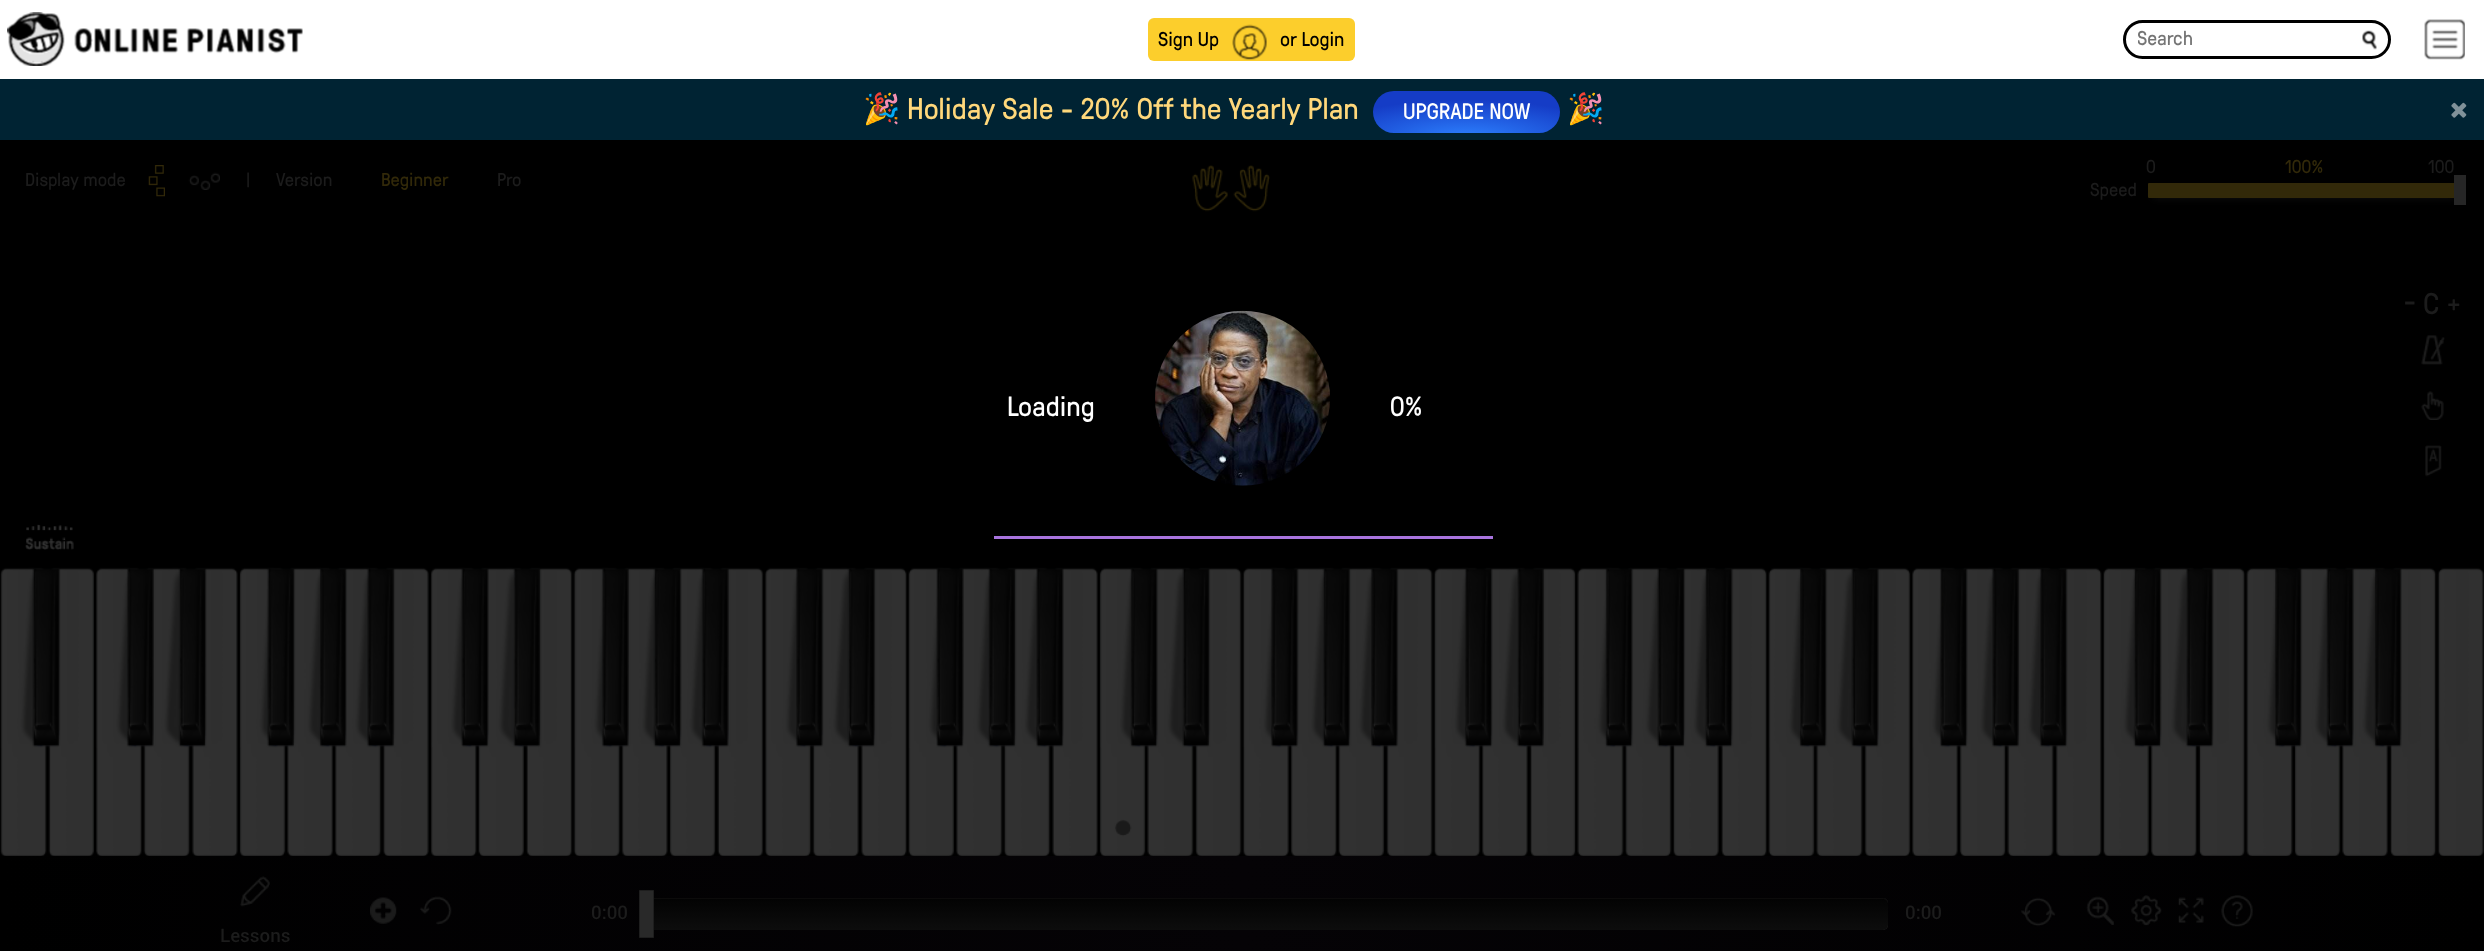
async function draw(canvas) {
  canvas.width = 2484;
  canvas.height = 951;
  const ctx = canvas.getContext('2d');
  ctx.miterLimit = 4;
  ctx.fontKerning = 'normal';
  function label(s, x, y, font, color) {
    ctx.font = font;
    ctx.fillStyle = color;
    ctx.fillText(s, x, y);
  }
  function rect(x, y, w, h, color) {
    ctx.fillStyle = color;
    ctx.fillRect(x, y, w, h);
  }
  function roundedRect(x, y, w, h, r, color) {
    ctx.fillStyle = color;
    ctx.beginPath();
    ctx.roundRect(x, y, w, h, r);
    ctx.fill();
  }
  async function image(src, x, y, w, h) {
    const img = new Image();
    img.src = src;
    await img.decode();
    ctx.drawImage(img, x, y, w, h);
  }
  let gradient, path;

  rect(0, 0, 2484, 951, '#fff');
  await image('assets/img1.png', 7, 12, 296, 54);
  roundedRect(1148, 18, 207, 43, 6, '#fcce2c');
  label('Sign Up', 1158, 46, '20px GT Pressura', '#000');
  await image('assets/img2.png', 1232, 24, 35, 36);
  label('or Login', 1280, 46, '20px GT Pressura', '#000');
  ctx.beginPath();
  ctx.roundRect(2124.5, 21.5, 265, 36, 18);
  ctx.strokeStyle = '#000';
  ctx.lineWidth = 3;
  ctx.stroke();
  ctx.save();
  ctx.beginPath();
  ctx.rect(2138, 24, 245, 26);
  ctx.clip();
  label('Search', 2137, 45, '20px GT Pressura', '#757575');
  ctx.restore();
  await image('assets/img3.png', 2362, 30, 15, 20);
  await image('assets/img4.png', 2424, 19, 41, 41);
  rect(0, 79, 2484, 61, '#002333');
  label('🎉', 863, 119, '30px Noto Color Emoji', '#ffd87b');
  label('Holiday Sale - 20% Off the Yearly Plan', 907, 119, '30px GT Pressura', '#ffd87b');
  gradient = ctx.createRadialGradient(1466, 544.74, 0, 1466, 544.74, 150);
  gradient.addColorStop(0, '#2d81ff');
  gradient.addColorStop(1, '#153cc6');
  ctx.fillStyle = gradient;
  ctx.beginPath();
  ctx.roundRect(1373, 91, 187, 42, 21);
  ctx.save();
  ctx.clip();
  ctx.scale(1, 38 / 150);
  ctx.fillRect(0, 0, 2484, 3754);
  ctx.restore();
  label('UPGRADE NOW', 1403, 119, '22.5px GT Pressura', '#fff');
  label('🎉', 1567, 119, '30px Noto Color Emoji', '#ffd87b');
  await image('assets/img5.png', 2451, 102, 16, 16);
  rect(0, 140, 2484, 716, '#000');
  label('Display mode', 25, 186, '18.75px GT Pressura', '#1c1c1c');
  await image('assets/img6.png', 148, 165, 17, 32);
  await image('assets/img7.png', 188, 172, 32, 18);
  label('|', 246, 186, '18.75px GT Pressura', '#1c1c1c');
  label('Version', 276, 186, '18.75px GT Pressura', '#1c1c1c');
  label('Beginner', 381, 186, '18.75px GT Pressura', '#322909');
  label('Pro', 497, 186, '18.75px GT Pressura', '#1c1c1c');
  await image('assets/img8.png', 1192, 165, 36, 47);
  await image('assets/img9.png', 1233, 165, 37, 47);
  label('0', 2146, 173, '18.75px GT Pressura', '#1c1c1c');
  label('100%', 2285, 173, '18.75px GT Pressura', '#322909');
  label('100', 2428, 173, '18.75px GT Pressura', '#1c1c1c');
  label('Speed', 2090, 196, '18.75px GT Pressura', '#1c1c1c');
  ctx.fillStyle = '#252525';
  ctx.filter = 'blur(4px)';
  ctx.beginPath();
  ctx.rect(2154, 193, 300, 3);
  ctx.fill();
  ctx.filter = 'none';
  roundedRect(2148, 183, 312, 15, 1, '#322909');
  rect(2454, 175, 12, 30, '#262626');
  label('-', 2403, 311, '30px GT Pressura', '#1c1c1c');
  label('C', 2423, 314, '30px GT Pressura', '#1c1c1c');
  label('+', 2447, 311, '25px GT Pressura', '#1c1c1c');
  await image('assets/img10.png', 2421, 335, 24, 30);
  await image('assets/img11.png', 2421, 391, 23, 29);
  await image('assets/img12.png', 2425, 445, 17, 32);
  await image('assets/img13.png', 25, 524, 49, 26);
  await image('assets/img14.png', 0, 567, 2484, 289);
  await image('assets/img15.png', 32, 568, 2370, 180);
  gradient = ctx.createLinearGradient(0, 934, 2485, 934);
  gradient.addColorStop(0, '#000');
  gradient.addColorStop(0.5, '#050306');
  gradient.addColorStop(1, '#000');
  ctx.fillStyle = gradient;
  ctx.fillRect(0, 856, 2484, 95);
  await image('assets/img16.png', 370, 897, 27, 27);
  await image('assets/img17.png', 420, 896, 32, 29);
  label('0:00', 591, 919, '500 18.75px Roboto', '#1c1c1c');
  roundedRect(645, 898, 1243, 32, 5, '#323232');
  gradient = ctx.createLinearGradient(1266, 897, 1266, 930);
  gradient.addColorStop(0, '#000000f2');
  gradient.addColorStop(1, '#0b0b0bf2');
  ctx.fillStyle = gradient;
  ctx.beginPath();
  ctx.roundRect(645, 898, 1243, 32, 5);
  ctx.fill();
  ctx.fillStyle = '#0c0b0b';
  path = new Path2D('M650 899H1882C1885 899 1888 901 1888 904C1888 901 1886 898 1883 898H650C647 898 645 901 645 904C645 901 647 899 650 899Z');
  ctx.fill(path);
  ctx.fillStyle = '#292929';
  ctx.beginPath();
  ctx.rect(639.5, 890.5, 14, 47);
  ctx.fill();
  ctx.strokeStyle = '#1e1e1e';
  ctx.lineWidth = 1;
  ctx.stroke();
  label('0:00', 1905, 919, '500 18.75px Roboto', '#1c1c1c');
  await image('assets/img18.png', 2021, 897, 35, 30);
  await image('assets/img19.png', 2086, 896, 28, 29);
  await image('assets/img20.png', 2131, 895, 31, 31);
  await image('assets/img21.png', 2178, 897, 26, 26);
  await image('assets/img22.png', 2221, 895, 32, 32);
  await image('assets/img23.png', 240, 876, 30, 31);
  label('Lessons', 220, 942, '500 18.75px Roboto', '#1c1c1c');
  label('Loading', 1007, 416, '28px GT Pressura', '#fff');
  await image('assets/img24.png', 1155, 310, 175, 176);
  label('0%', 1390, 416, '28px GT Pressura', '#fff');
  rect(994, 536, 499, 3, '#a874de');
}

draw(document.querySelector('canvas'));
